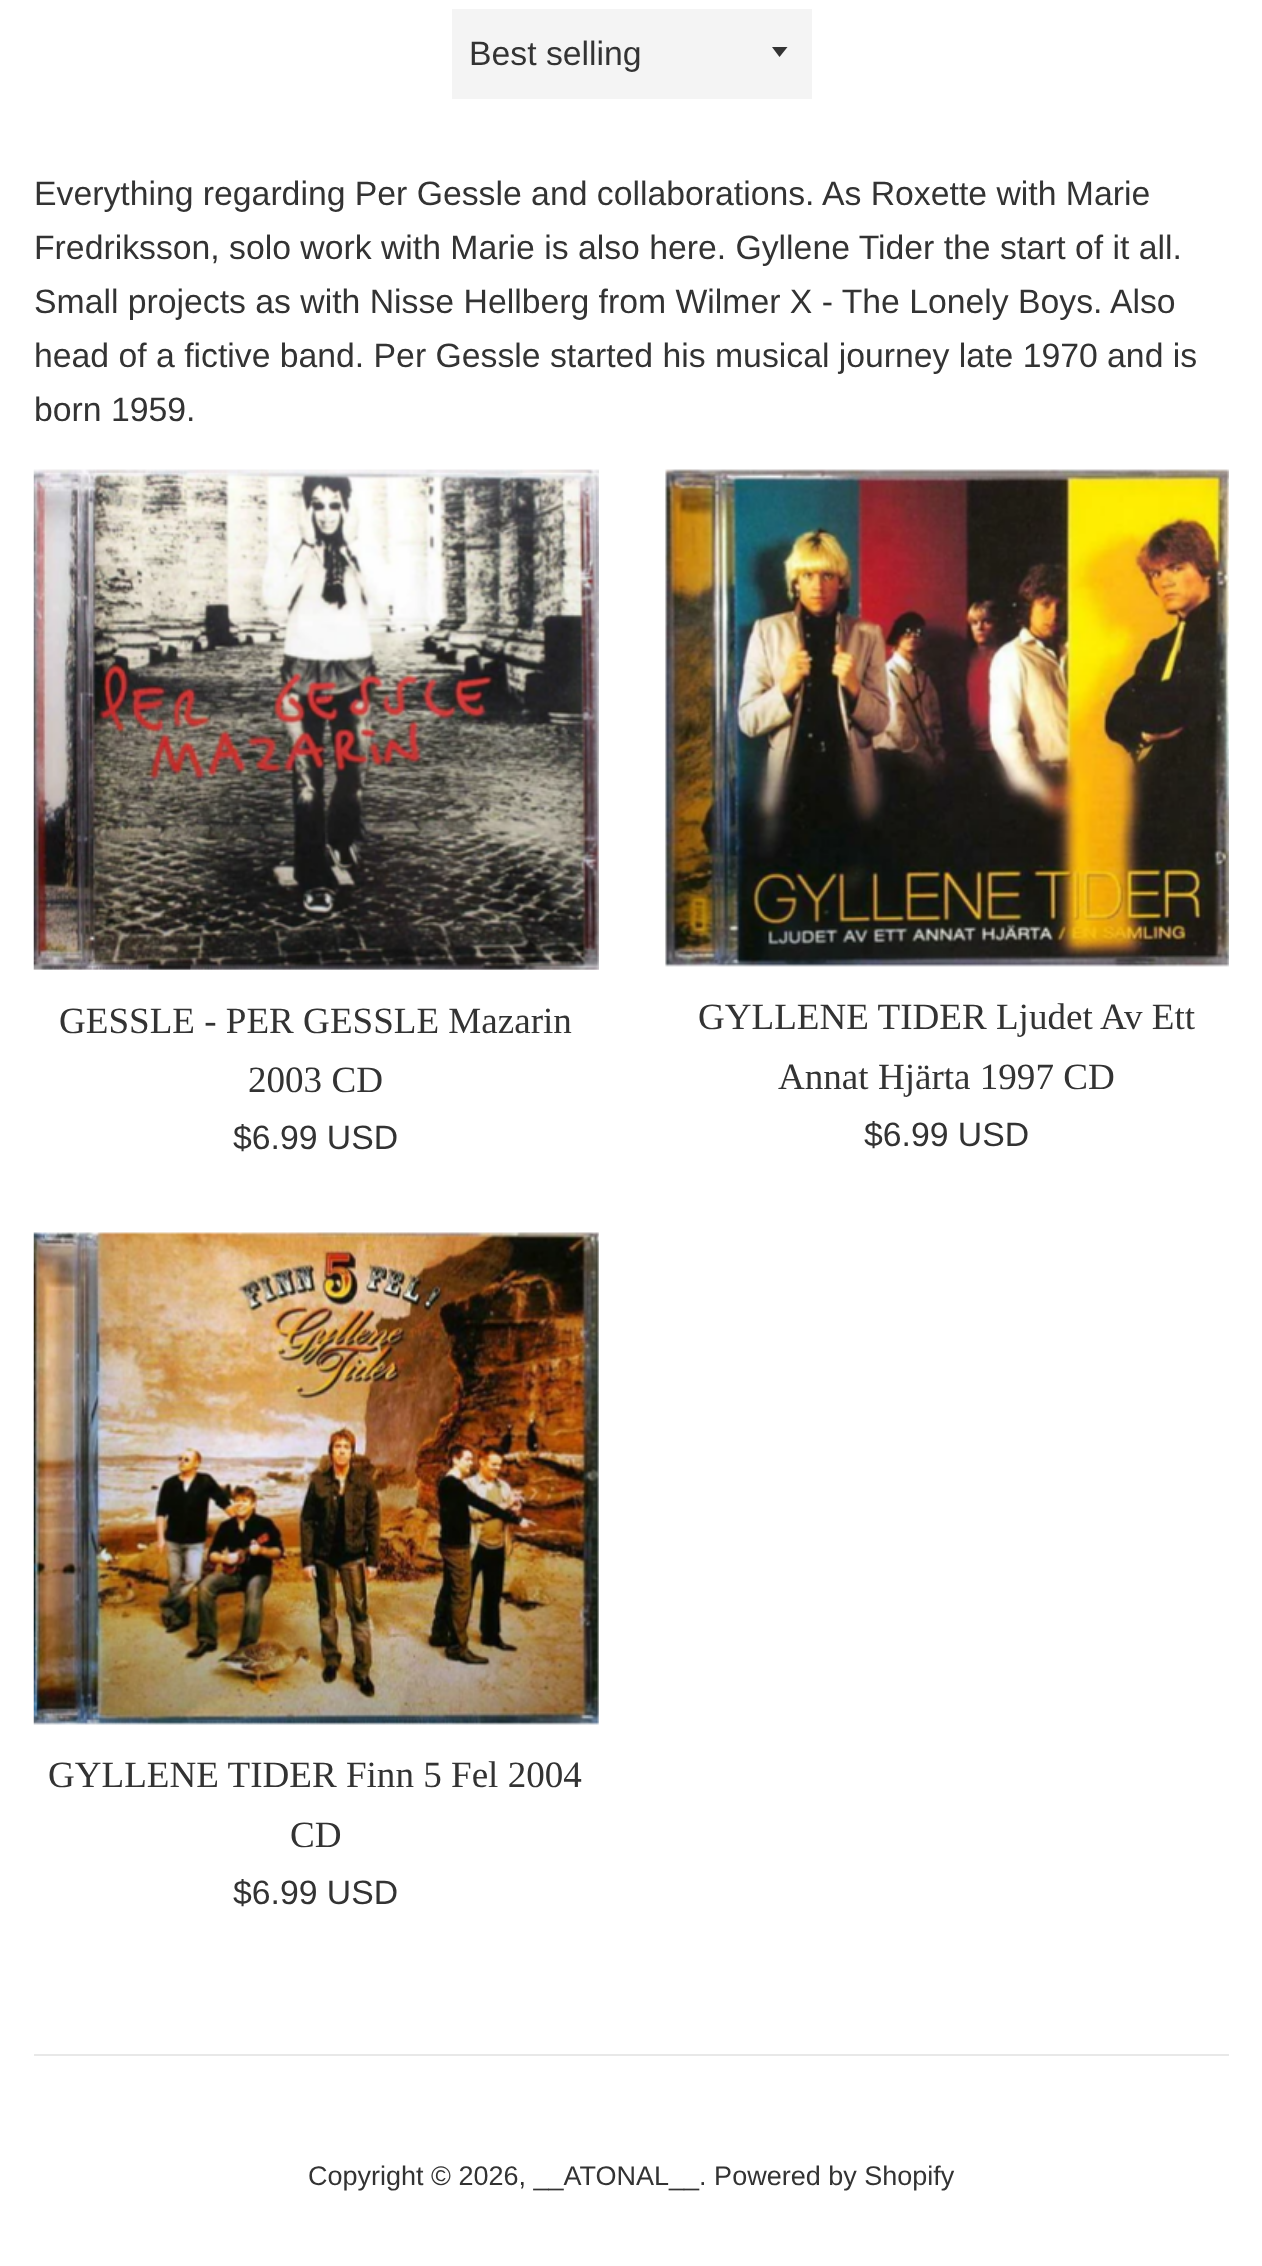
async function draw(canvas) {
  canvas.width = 1262;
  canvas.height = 2266;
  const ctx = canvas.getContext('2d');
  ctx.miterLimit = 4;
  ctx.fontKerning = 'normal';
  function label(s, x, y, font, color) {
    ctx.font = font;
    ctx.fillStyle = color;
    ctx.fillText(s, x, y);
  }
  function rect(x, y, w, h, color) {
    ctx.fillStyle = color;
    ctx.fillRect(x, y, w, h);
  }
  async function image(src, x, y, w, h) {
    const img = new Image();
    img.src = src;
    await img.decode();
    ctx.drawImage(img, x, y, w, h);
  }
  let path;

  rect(0, 0, 1262, 2266, '#fff');
  rect(452, 9, 360, 90, '#f4f4f4');
  ctx.fillStyle = '#333';
  path = new Path2D('M772 47L779.5 57L787.5 47Z');
  ctx.fill(path);
  label('Best selling', 469, 65, '33.75px Liberation Sans', '#333');
  label('Everything regarding Per Gessle and collaborations. As Roxette with Marie', 34, 205, '33.75px Liberation Sans', '#333');
  label('Fredriksson, solo work with Marie is also here. Gyllene Tider the start of it all.', 34, 259, '33.75px Liberation Sans', '#333');
  label('Small projects as with Nisse Hellberg from Wilmer X - The Lonely Boys. Also', 34, 313, '33.75px Liberation Sans', '#333');
  label('head of a fictive band. Per Gessle started his musical journey late 1970 and is', 34, 367, '33.75px Liberation Sans', '#333');
  label('born 1959.', 34, 421, '33.75px Liberation Sans', '#333');
  await image('assets/img1.png', 33, 469, 566, 501);
  label('GESSLE - PER GESSLE Mazarin', 59, 1033, '37.1px Liberation Serif', '#333');
  label('2003 CD', 248, 1092, '37.1px Liberation Serif', '#333');
  label('$6.99 USD', 233, 1149, '33.75px Liberation Sans', '#333');
  await image('assets/img2.png', 665, 469, 564, 498);
  label('GYLLENE TIDER Ljudet Av Ett', 698, 1029, '37.1px Liberation Serif', '#333');
  label('Annat Hjärta 1997 CD', 778, 1089, '37.1px Liberation Serif', '#333');
  label('$6.99 USD', 864, 1146, '33.75px Liberation Sans', '#333');
  await image('assets/img3.png', 33, 1232, 566, 493);
  label('GYLLENE TIDER Finn 5 Fel 2004', 48, 1787, '37.1px Liberation Serif', '#333');
  label('CD', 290, 1847, '37.1px Liberation Serif', '#333');
  label('$6.99 USD', 233, 1904, '33.75px Liberation Sans', '#333');
  rect(34, 2054, 1195, 2, '#e8e8e8');
  label('Copyright © 2026, __ATONAL__. Powered by Shopify', 308, 2185, '27px Liberation Sans', '#333');
}

draw(document.querySelector('canvas'));
